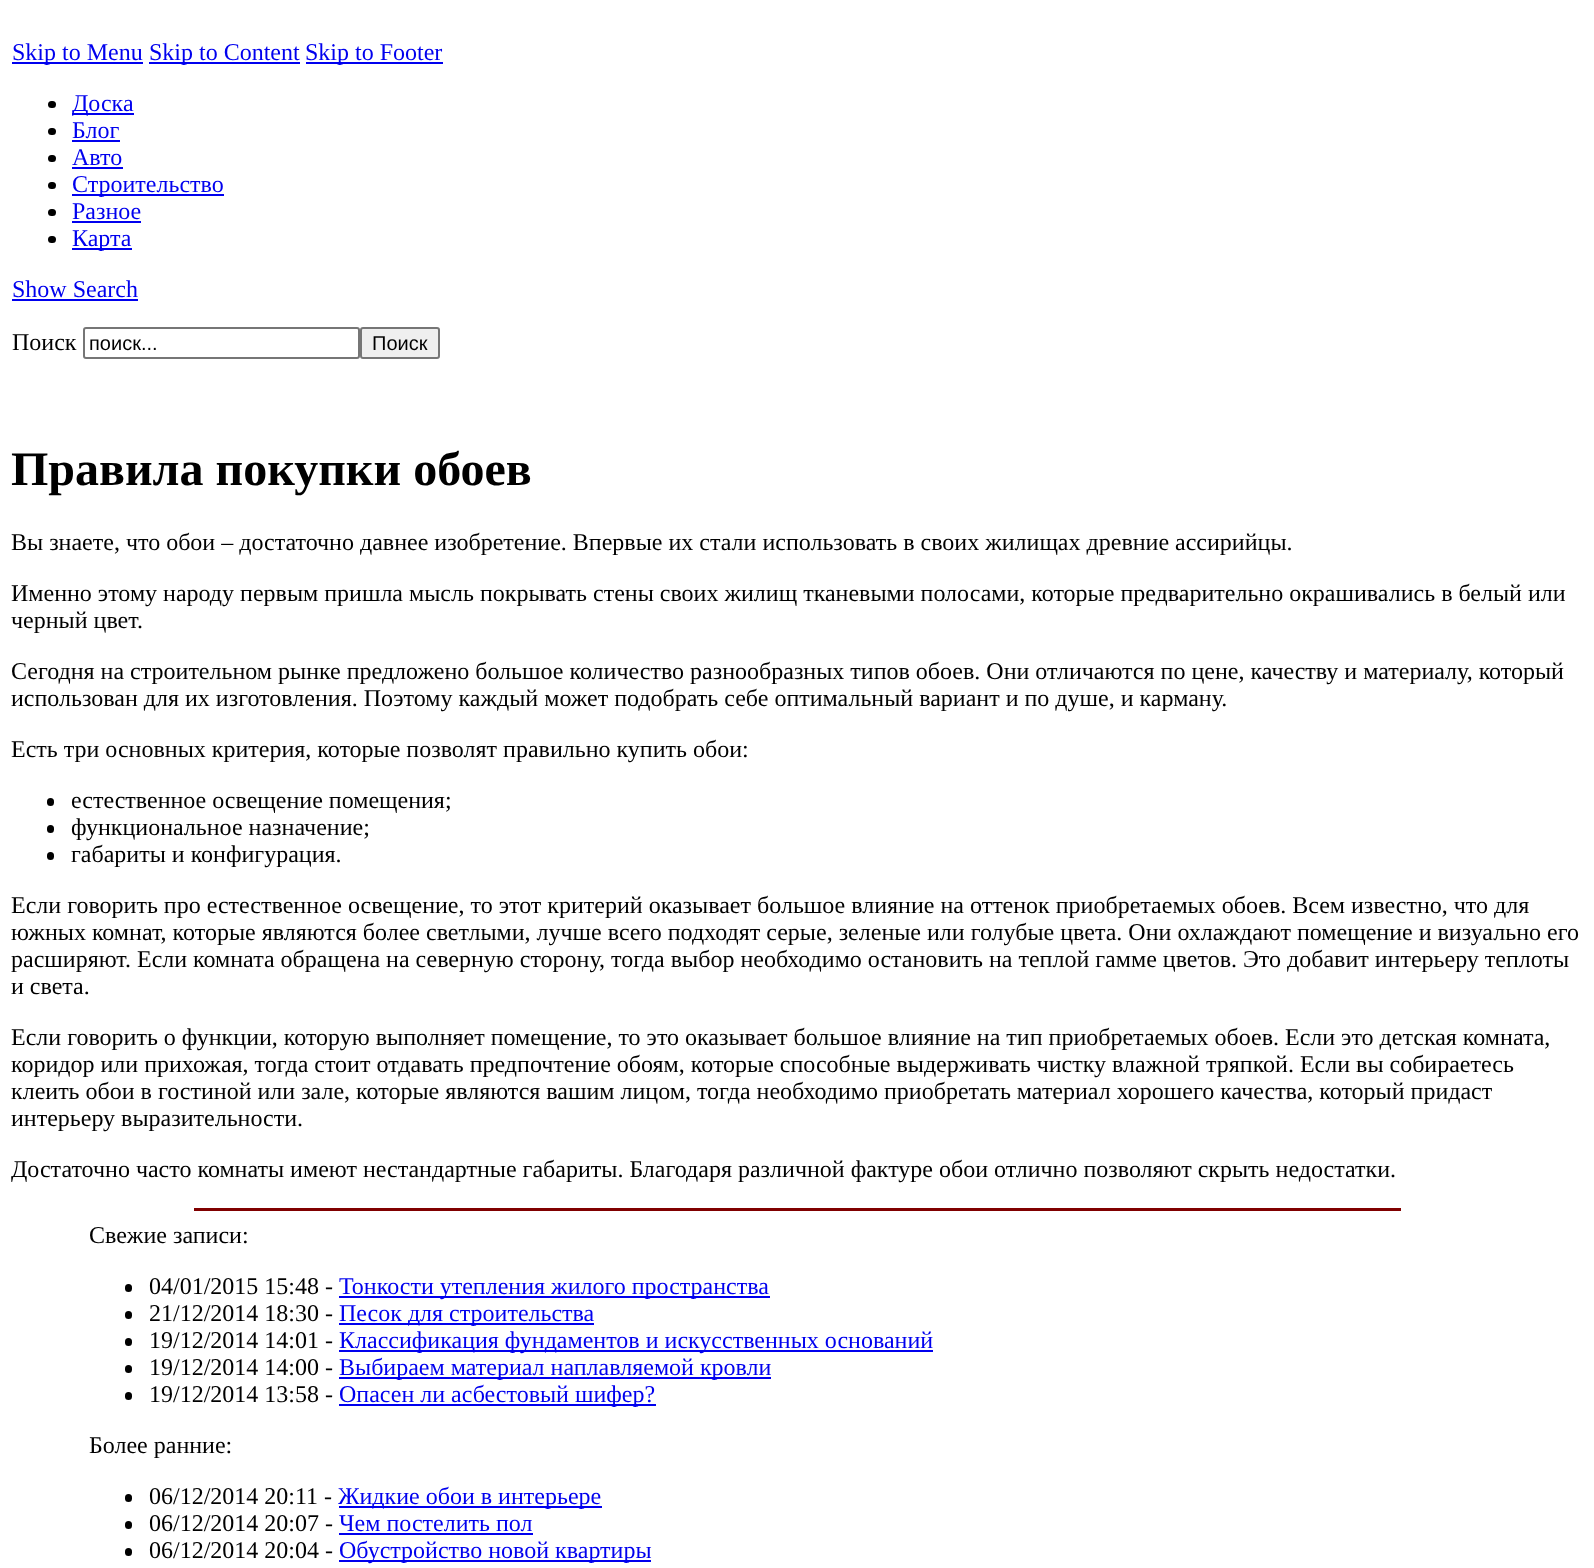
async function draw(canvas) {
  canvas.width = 1594;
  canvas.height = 1568;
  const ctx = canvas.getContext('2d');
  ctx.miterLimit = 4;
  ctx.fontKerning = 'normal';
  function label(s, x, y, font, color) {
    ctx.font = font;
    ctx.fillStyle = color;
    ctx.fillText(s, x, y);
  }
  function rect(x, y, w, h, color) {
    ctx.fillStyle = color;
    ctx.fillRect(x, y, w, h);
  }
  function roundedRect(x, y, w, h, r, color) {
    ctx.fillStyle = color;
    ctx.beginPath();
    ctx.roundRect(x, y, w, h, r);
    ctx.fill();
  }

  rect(0, 0, 1594, 1568, '#fff');
  rect(12, 62, 131, 2, '#00e');
  label('Skip to Menu', 12, 60, '24px Liberation Serif', '#00e');
  rect(149, 62, 151, 2, '#00e');
  label('Skip to Content', 149, 60, '24px Liberation Serif', '#00e');
  rect(306, 62, 137, 2, '#00e');
  label('Skip to Footer', 305, 60, '24px Liberation Serif', '#00e');
  roundedRect(48, 101, 8, 7, 3.5, '#000');
  rect(72, 113, 62, 2, '#00e');
  label('Доска', 72, 111, '24px Liberation Serif', '#00e');
  roundedRect(48, 128, 8, 7, 3.5, '#000');
  label('Блог', 72, 138, '24px Liberation Serif', '#00e');
  rect(72, 140, 48, 2, '#00e');
  roundedRect(48, 155, 8, 7, 3.5, '#000');
  label('Авто', 72, 165, '24px Liberation Serif', '#00e');
  rect(72, 167, 51, 2, '#00e');
  roundedRect(48, 182, 8, 7, 3.5, '#000');
  rect(72, 194, 152, 2, '#00e');
  label('Строительство', 72, 192, '24px Liberation Serif', '#00e');
  roundedRect(48, 209, 8, 7, 3.5, '#000');
  label('Разное', 72, 219, '24px Liberation Serif', '#00e');
  rect(72, 221, 69, 2, '#00e');
  roundedRect(48, 236, 8, 7, 3.5, '#000');
  rect(72, 248, 60, 2, '#00e');
  label('Карта', 72, 246, '24px Liberation Serif', '#00e');
  label('Show Search', 12, 297, '24px Liberation Serif', '#00e');
  rect(12, 299, 126, 2, '#00e');
  label('Поиск', 12, 350, '24px Liberation Serif', '#000');
  ctx.beginPath();
  ctx.roundRect(84, 328, 275, 30, 2);
  ctx.strokeStyle = '#767676';
  ctx.lineWidth = 2;
  ctx.stroke();
  label('поиск...', 89, 350, '20px Liberation Sans', '#000');
  ctx.fillStyle = '#efefef';
  ctx.beginPath();
  ctx.roundRect(361, 328, 78, 30, 2);
  ctx.fill();
  ctx.stroke();
  label('Поиск', 372, 350, '20px Liberation Sans', '#000');
  label('Правила покупки обоев', 11, 485, 'bold 48px Liberation Serif', '#000');
  label('Вы знаете, что обои – достаточно давнее изобретение. Впервые их стали использовать в своих жилищах древние ассирийцы.', 11, 550, '24px Liberation Serif', '#000');
  label('Именно этому народу первым пришла мысль покрывать стены своих жилищ тканевыми полосами, которые предварительно окрашивались в белый или', 11, 601, '24px Liberation Serif', '#000');
  label('черный цвет.', 11, 628, '24px Liberation Serif', '#000');
  label('Сегодня на строительном рынке предложено большое количество разнообразных типов обоев. Они отличаются по цене, качеству и материалу, который', 11, 679, '24px Liberation Serif', '#000');
  label('использован для их изготовления. Поэтому каждый может подобрать себе оптимальный вариант и по душе, и карману.', 11, 706, '24px Liberation Serif', '#000');
  label('Есть три основных критерия, которые позволят правильно купить обои:', 11, 757, '24px Liberation Serif', '#000');
  roundedRect(47, 798, 7, 8, 3.5, '#000');
  label('естественное освещение помещения;', 71, 808, '24px Liberation Serif', '#000');
  roundedRect(47, 825, 7, 8, 3.5, '#000');
  label('функциональное назначение;', 71, 835, '24px Liberation Serif', '#000');
  roundedRect(47, 852, 7, 8, 3.5, '#000');
  label('габариты и конфигурация.', 71, 862, '24px Liberation Serif', '#000');
  label('Если говорить про естественное освещение, то этот критерий оказывает большое влияние на оттенок приобретаемых обоев. Всем известно, что для', 11, 913, '24px Liberation Serif', '#000');
  label('южных комнат, которые являются более светлыми, лучше всего подходят серые, зеленые или голубые цвета. Они охлаждают помещение и визуально его', 11, 940, '24px Liberation Serif', '#000');
  label('расширяют. Если комната обращена на северную сторону, тогда выбор необходимо остановить на теплой гамме цветов. Это добавит интерьеру теплоты', 11, 967, '24px Liberation Serif', '#000');
  label('и света.', 11, 994, '24px Liberation Serif', '#000');
  label('Если говорить о функции, которую выполняет помещение, то это оказывает большое влияние на тип приобретаемых обоев. Если это детская комната,', 11, 1045, '24px Liberation Serif', '#000');
  label('коридор или прихожая, тогда стоит отдавать предпочтение обоям, которые способные выдерживать чистку влажной тряпкой. Если вы собираетесь', 11, 1072, '24px Liberation Serif', '#000');
  label('клеить обои в гостиной или зале, которые являются вашим лицом, тогда необходимо приобретать материал хорошего качества, который придаст', 11, 1099, '24px Liberation Serif', '#000');
  label('интерьеру выразительности.', 11, 1126, '24px Liberation Serif', '#000');
  label('Достаточно часто комнаты имеют нестандартные габариты. Благодаря различной фактуре обои отлично позволяют скрыть недостатки.', 11, 1177, '24px Liberation Serif', '#000');
  rect(194, 1208, 1207, 3, '#800000');
  label('Свежие записи:', 89, 1243, '24px Liberation Serif', '#000');
  roundedRect(125, 1284, 7, 8, 3.5, '#000');
  label('04/01/2015 15:48 -', 149, 1294, '24px Liberation Serif', '#000');
  rect(339, 1296, 431, 2, '#00e');
  label('Тонкости утепления жилого пространства', 339, 1294, '24px Liberation Serif', '#00e');
  roundedRect(125, 1311, 7, 8, 3.5, '#000');
  label('21/12/2014 18:30 -', 149, 1321, '24px Liberation Serif', '#000');
  rect(339, 1323, 255, 2, '#00e');
  label('Песок для строительства', 339, 1321, '24px Liberation Serif', '#00e');
  roundedRect(125, 1338, 7, 8, 3.5, '#000');
  label('19/12/2014 14:01 -', 149, 1348, '24px Liberation Serif', '#000');
  rect(339, 1350, 594, 2, '#00e');
  label('Классификация фундаментов и искусственных оснований', 339, 1348, '24px Liberation Serif', '#00e');
  roundedRect(125, 1365, 7, 8, 3.5, '#000');
  label('19/12/2014 14:00 -', 149, 1375, '24px Liberation Serif', '#000');
  rect(339, 1377, 432, 2, '#00e');
  label('Выбираем материал наплавляемой кровли', 339, 1375, '24px Liberation Serif', '#00e');
  roundedRect(125, 1392, 7, 8, 3.5, '#000');
  label('19/12/2014 13:58 -', 149, 1402, '24px Liberation Serif', '#000');
  rect(339, 1404, 317, 2, '#00e');
  label('Опасен ли асбестовый шифер?', 339, 1402, '24px Liberation Serif', '#00e');
  label('Более ранние:', 89, 1453, '24px Liberation Serif', '#000');
  roundedRect(125, 1494, 7, 8, 3.5, '#000');
  label('06/12/2014 20:11 -', 149, 1504, '24px Liberation Serif', '#000');
  rect(339, 1506, 263, 2, '#00e');
  label('Жидкие обои в интерьере', 338, 1504, '24px Liberation Serif', '#00e');
  roundedRect(125, 1521, 7, 8, 3.5, '#000');
  label('06/12/2014 20:07 -', 149, 1531, '24px Liberation Serif', '#000');
  label('Чем постелить пол', 339, 1531, '24px Liberation Serif', '#00e');
  rect(339, 1533, 194, 2, '#00e');
  roundedRect(125, 1548, 7, 8, 3.5, '#000');
  label('06/12/2014 20:04 -', 149, 1558, '24px Liberation Serif', '#000');
  rect(339, 1560, 312, 2, '#00e');
  label('Обустройство новой квартиры', 339, 1558, '24px Liberation Serif', '#00e');
}

draw(document.querySelector('canvas'));
